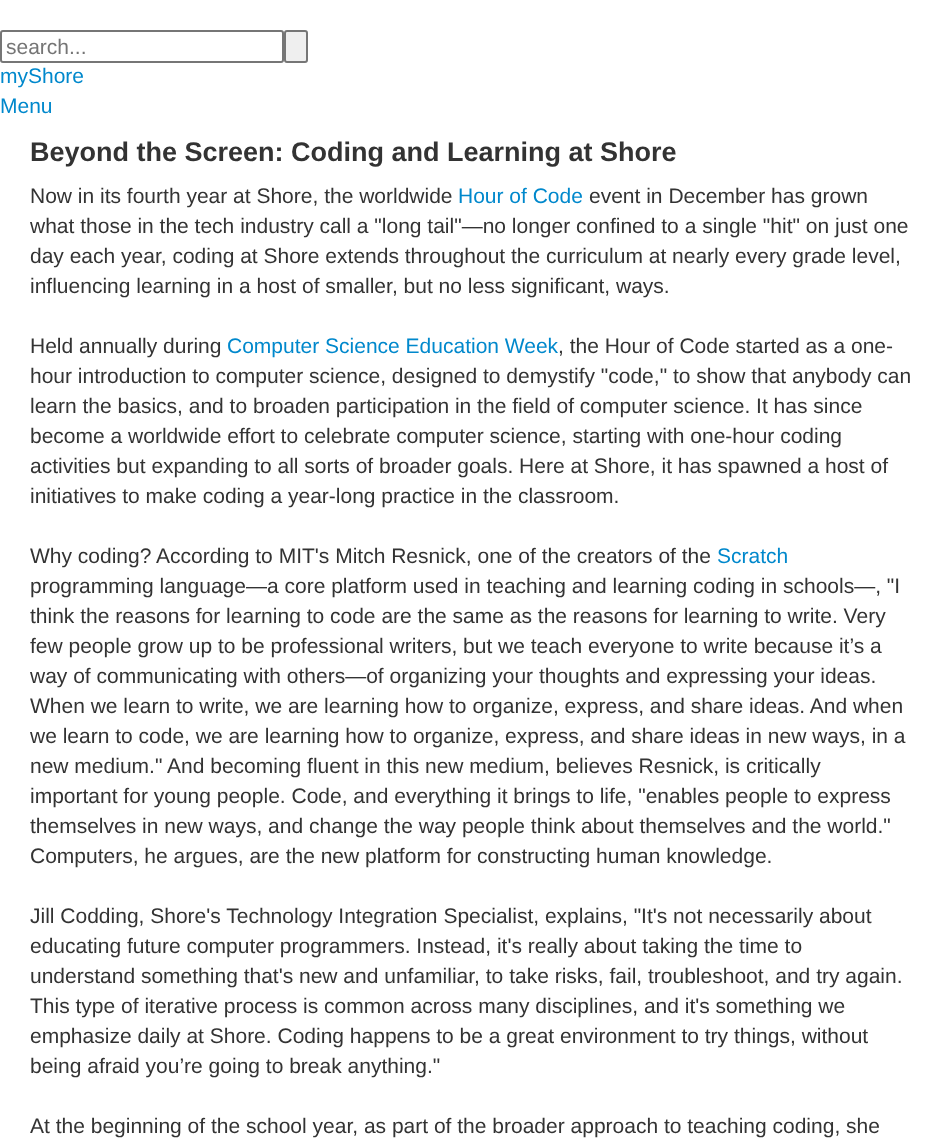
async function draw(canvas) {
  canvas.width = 942;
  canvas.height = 1142;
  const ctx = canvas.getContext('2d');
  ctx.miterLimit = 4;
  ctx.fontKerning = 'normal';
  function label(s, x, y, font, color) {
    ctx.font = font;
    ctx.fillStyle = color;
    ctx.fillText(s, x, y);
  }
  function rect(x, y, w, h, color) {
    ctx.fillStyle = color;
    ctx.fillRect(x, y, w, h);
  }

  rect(0, 0, 942, 1142, '#fff');
  ctx.beginPath();
  ctx.roundRect(1, 31, 282, 31, 2);
  ctx.strokeStyle = '#767676';
  ctx.lineWidth = 2;
  ctx.stroke();
  label('search...', 6, 54, '21px Liberation Sans', '#757575');
  ctx.fillStyle = '#efefef';
  ctx.beginPath();
  ctx.roundRect(285, 31, 22, 31, 2);
  ctx.fill();
  ctx.stroke();
  label('myShore', 0, 83, '21px Liberation Sans', '#08c');
  label('Menu', 0, 113, '21px Liberation Sans', '#08c');
  label('Beyond the Screen: Coding and Learning at Shore', 30, 161, 'bold 27px Liberation Sans', '#333');
  label('Now in its fourth year at Shore, the worldwide', 30, 203, '21px Liberation Sans', '#333');
  label('Hour of Code', 458, 203, '21px Liberation Sans', '#08c');
  label('event in December has grown', 589, 203, '21px Liberation Sans', '#333');
  label('what those in the tech industry call a "long tail"—no longer confined to a single "hit" on just one', 30, 233, '21px Liberation Sans', '#333');
  label('day each year, coding at Shore extends throughout the curriculum at nearly every grade level,', 30, 263, '21px Liberation Sans', '#333');
  label('influencing learning in a host of smaller, but no less significant, ways.', 30, 293, '21px Liberation Sans', '#333');
  label('Held annually during', 30, 353, '21px Liberation Sans', '#333');
  label('Computer Science Education Week', 227, 353, '21px Liberation Sans', '#08c');
  label(', the Hour of Code started as a one-', 558, 353, '21px Liberation Sans', '#333');
  label('hour introduction to computer science, designed to demystify "code," to show that anybody can', 30, 383, '21px Liberation Sans', '#333');
  label('learn the basics, and to broaden participation in the field of computer science. It has since', 30, 413, '21px Liberation Sans', '#333');
  label('become a worldwide effort to celebrate computer science, starting with one-hour coding', 30, 443, '21px Liberation Sans', '#333');
  label('activities but expanding to all sorts of broader goals. Here at Shore, it has spawned a host of', 30, 473, '21px Liberation Sans', '#333');
  label('initiatives to make coding a year-long practice in the classroom.', 30, 503, '21px Liberation Sans', '#333');
  label('Why coding? According to MIT\'s Mitch Resnick, one of the creators of the', 30, 563, '21px Liberation Sans', '#333');
  label('Scratch', 717, 563, '21px Liberation Sans', '#08c');
  label('programming language—a core platform used in teaching and learning coding in schools—, "I', 30, 593, '21px Liberation Sans', '#333');
  label('think the reasons for learning to code are the same as the reasons for learning to write. Very', 30, 623, '21px Liberation Sans', '#333');
  label('few people grow up to be professional writers, but we teach everyone to write because it’s a', 30, 653, '21px Liberation Sans', '#333');
  label('way of communicating with others—of organizing your thoughts and expressing your ideas.', 30, 683, '21px Liberation Sans', '#333');
  label('When we learn to write, we are learning how to organize, express, and share ideas. And when', 30, 713, '21px Liberation Sans', '#333');
  label('we learn to code, we are learning how to organize, express, and share ideas in new ways, in a', 30, 743, '21px Liberation Sans', '#333');
  label('new medium." And becoming fluent in this new medium, believes Resnick, is critically', 30, 773, '21px Liberation Sans', '#333');
  label('important for young people. Code, and everything it brings to life, "enables people to express', 30, 803, '21px Liberation Sans', '#333');
  label('themselves in new ways, and change the way people think about themselves and the world."', 30, 833, '21px Liberation Sans', '#333');
  label('Computers, he argues, are the new platform for constructing human knowledge.', 30, 863, '21px Liberation Sans', '#333');
  label('Jill Codding, Shore\'s Technology Integration Specialist, explains, "It\'s not necessarily about', 30, 923, '21px Liberation Sans', '#333');
  label('educating future computer programmers. Instead, it\'s really about taking the time to', 30, 953, '21px Liberation Sans', '#333');
  label('understand something that\'s new and unfamiliar, to take risks, fail, troubleshoot, and try again.', 30, 983, '21px Liberation Sans', '#333');
  label('This type of iterative process is common across many disciplines, and it\'s something we', 30, 1013, '21px Liberation Sans', '#333');
  label('emphasize daily at Shore. Coding happens to be a great environment to try things, without', 30, 1043, '21px Liberation Sans', '#333');
  label('being afraid you’re going to break anything."', 30, 1073, '21px Liberation Sans', '#333');
  label('At the beginning of the school year, as part of the broader approach to teaching coding, she', 30, 1133, '21px Liberation Sans', '#333');
}

draw(document.querySelector('canvas'));
